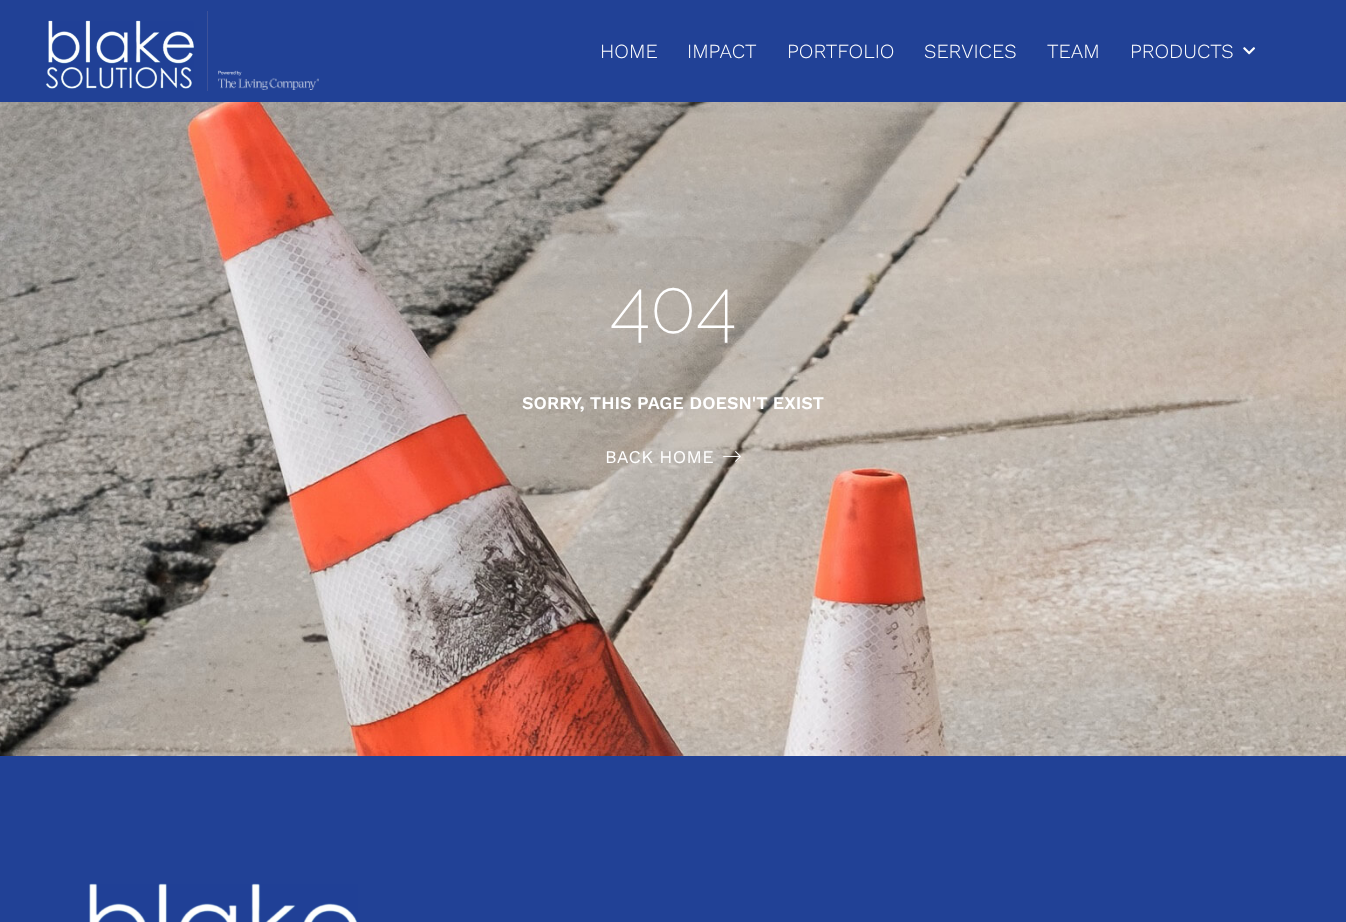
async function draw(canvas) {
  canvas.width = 1346;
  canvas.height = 922;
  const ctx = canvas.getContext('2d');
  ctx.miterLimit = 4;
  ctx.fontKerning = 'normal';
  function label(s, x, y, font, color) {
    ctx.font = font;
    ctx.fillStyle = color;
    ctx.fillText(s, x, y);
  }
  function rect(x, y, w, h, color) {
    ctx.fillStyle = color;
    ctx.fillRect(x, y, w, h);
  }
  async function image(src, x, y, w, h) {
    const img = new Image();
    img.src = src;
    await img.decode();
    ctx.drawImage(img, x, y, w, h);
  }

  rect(0, 0, 1346, 922, '#214196');
  await image('assets/img1.png', 45, 20, 149, 69);
  rect(207, 11, 1, 80, '#3d5299');
  await image('assets/img2.png', 218, 70, 101, 20);
  label('HOME', 600, 58, '300 20px Work Sans', '#fff');
  label('IMPACT', 687, 58, '300 20px Work Sans', '#fff');
  label('PORTFOLIO', 787, 58, '300 20px Work Sans', '#fff');
  label('SERVICES', 924, 58, '300 20px Work Sans', '#fff');
  label('TEAM', 1047, 58, '300 20px Work Sans', '#fff');
  label('PRODUCTS', 1130, 58, '300 20px Work Sans', '#fff');
  await image('assets/img3.png', 1243, 47, 12, 8);
  await image('assets/img4.png', 0, 102, 1346, 654);
  label('404', 610, 333, '200 76px Raleway', '#fff');
  label('SORRY, THIS PAGE DOESN\'T EXIST', 522, 409, '600 18px Work Sans', '#fff');
  ctx.letterSpacing = '0.25px';
  label('BACK HOME', 605, 463, '18px Work Sans', '#fff');
  await image('assets/img5.png', 723, 451, 18, 11);
  await image('assets/img6.png', 89, 883, 269, 39);
}

draw(document.querySelector('canvas'));
